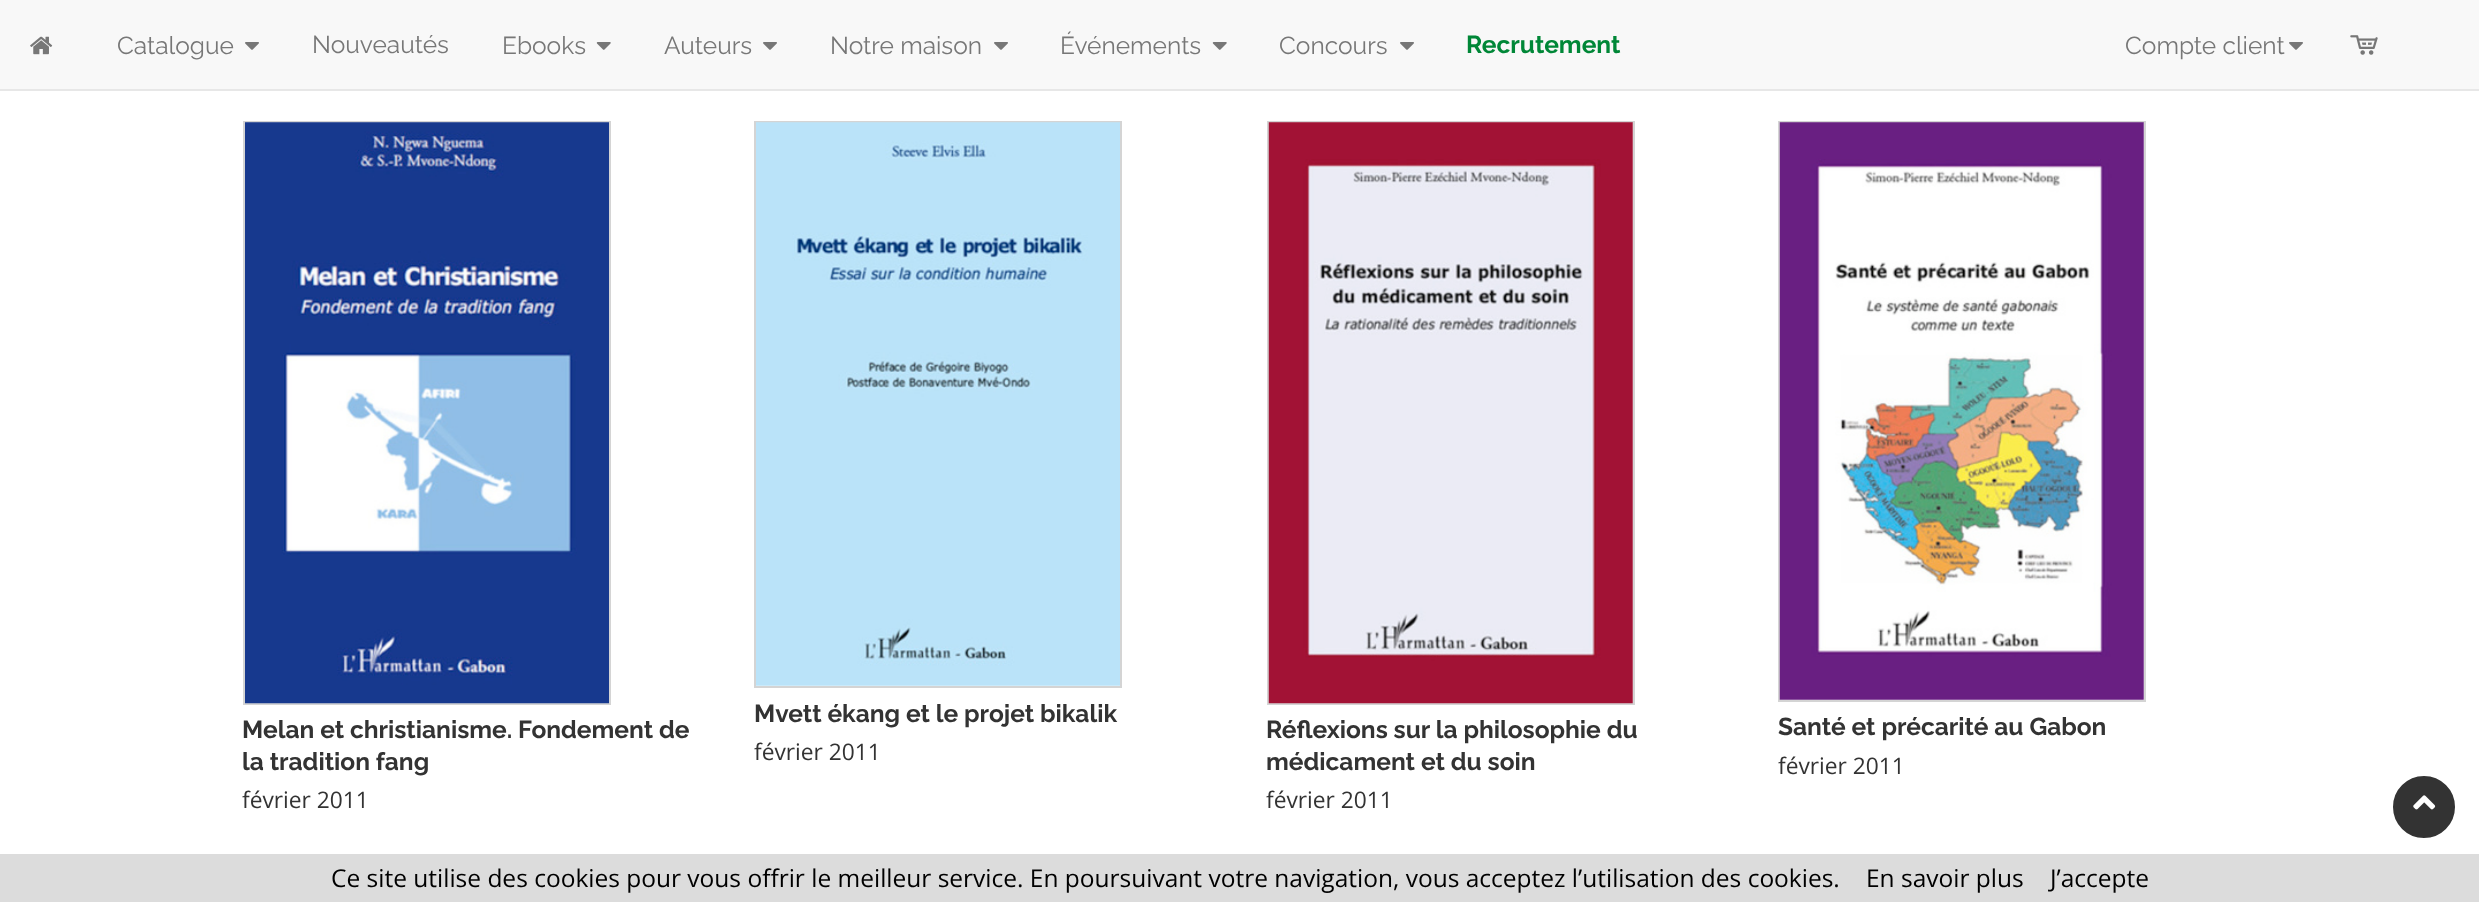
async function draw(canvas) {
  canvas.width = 2479;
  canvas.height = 902;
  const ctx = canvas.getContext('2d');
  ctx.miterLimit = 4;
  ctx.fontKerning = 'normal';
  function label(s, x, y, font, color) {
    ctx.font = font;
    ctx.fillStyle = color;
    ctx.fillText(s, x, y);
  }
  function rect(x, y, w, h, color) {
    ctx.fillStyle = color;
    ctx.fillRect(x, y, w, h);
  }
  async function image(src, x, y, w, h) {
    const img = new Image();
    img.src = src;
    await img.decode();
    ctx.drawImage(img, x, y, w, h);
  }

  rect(0, 0, 2479, 902, '#fff');
  rect(0, 0, 2479, 89, '#f8f8f8');
  rect(0, 89, 2479, 2, '#e7e7e7');
  await image('assets/img1.png', 30, 36, 23, 19);
  label('Catalogue', 117, 54, '24.5px Raleway', '#777');
  await image('assets/img2.png', 245, 42, 14, 8);
  label('Nouveautés', 312, 53, '24.5px Raleway', '#777');
  label('Ebooks', 502, 54, '24.5px Raleway', '#777');
  await image('assets/img3.png', 596, 42, 15, 8);
  label('Auteurs', 664, 54, '24.5px Raleway', '#777');
  await image('assets/img2.png', 763, 42, 14, 8);
  label('Notre maison', 830, 54, '24.5px Raleway', '#777');
  await image('assets/img2.png', 994, 42, 14, 8);
  label('Événements', 1060, 54, '24.5px Raleway', '#777');
  await image('assets/img3.png', 1212, 42, 15, 8);
  label('Concours', 1279, 54, '24.5px Raleway', '#777');
  await image('assets/img2.png', 1400, 42, 14, 8);
  label('Recrutement', 1466, 53, 'bold 24.5px Raleway', '#008737');
  label('Compte client', 2125, 54, '24.5px Raleway', '#777');
  await image('assets/img2.png', 2289, 42, 14, 8);
  await image('assets/img4.png', 2350, 35, 28, 20);
  ctx.strokeStyle = '#d4d4d4';
  ctx.lineWidth = 2;
  ctx.strokeRect(244, 122, 366, 582);
  await image('assets/img5.png', 245, 122, 364, 582);
  label('Melan et christianisme. Fondement de', 242, 738, 'bold 24.5px Raleway', '#333');
  label('la tradition fang', 242, 770, 'bold 24.5px Raleway', '#333');
  label('février 2011', 242, 808, '22.75px Open Sans', '#333');
  ctx.strokeRect(755, 122, 366, 565);
  await image('assets/img6.png', 756, 122, 364, 564);
  label('Mvett ékang et le projet bikalik', 754, 722, 'bold 24.5px Raleway', '#333');
  label('février 2011', 754, 760, '22.75px Open Sans', '#333');
  ctx.strokeRect(1268, 122, 366, 582);
  await image('assets/img7.png', 1268, 122, 365, 582);
  label('Réflexions sur la philosophie du', 1266, 738, 'bold 24.5px Raleway', '#333');
  label('médicament et du soin', 1266, 770, 'bold 24.5px Raleway', '#333');
  label('février 2011', 1266, 808, '22.75px Open Sans', '#333');
  ctx.strokeRect(1779, 122, 366, 579);
  await image('assets/img8.png', 1779, 122, 365, 578);
  label('Santé et précarité au Gabon', 1778, 735, 'bold 24.5px Raleway', '#333');
  label('février 2011', 1778, 774, '22.75px Open Sans', '#333');
  ctx.beginPath();
  ctx.arc(2424, 807, 33, 0, 2 * Math.PI);
  ctx.fill();
  ctx.strokeStyle = '#fff';
  ctx.lineWidth = 4;
  ctx.stroke();
  await image('assets/img9.png', 2413, 795, 23, 15);
  rect(0, 854, 2479, 48, '#dcdcdc');
  label('Ce site utilise des cookies pour vous offrir le meilleur service. En poursuivant votre navigation, vous acceptez l’utilisation des cookies.', 331, 887, '24.5px Open Sans', '#000');
  label('En savoir plus', 1866, 887, '24.5px Open Sans', '#000');
  label('J’accepte', 2050, 887, '24.5px Open Sans', '#000');
}

draw(document.querySelector('canvas'));
